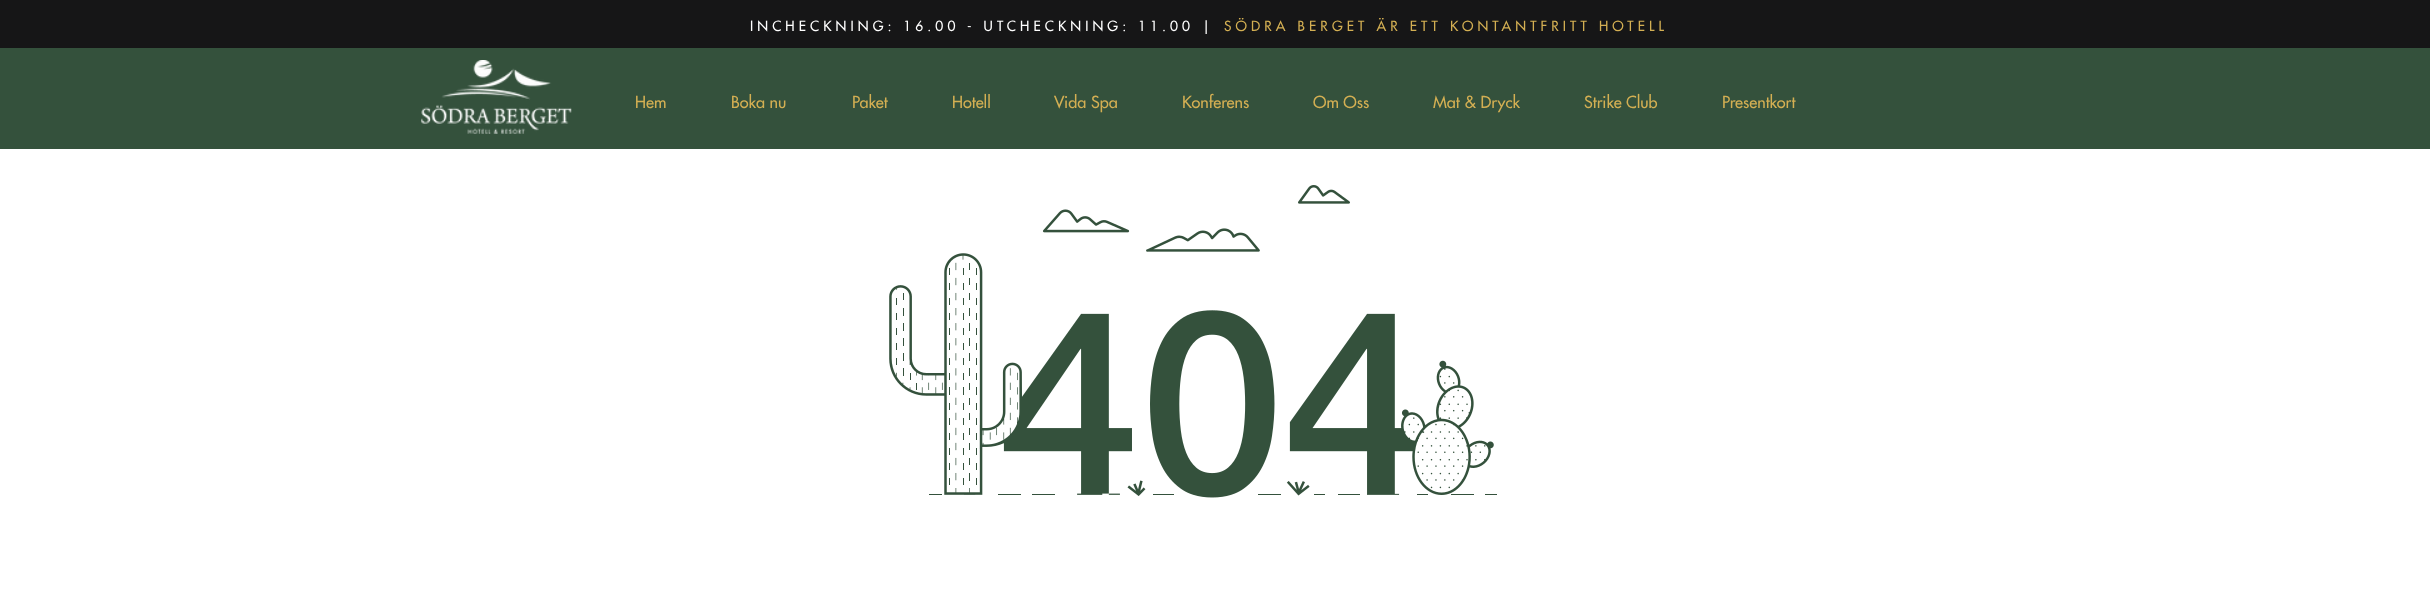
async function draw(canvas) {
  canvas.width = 2430;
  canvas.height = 595;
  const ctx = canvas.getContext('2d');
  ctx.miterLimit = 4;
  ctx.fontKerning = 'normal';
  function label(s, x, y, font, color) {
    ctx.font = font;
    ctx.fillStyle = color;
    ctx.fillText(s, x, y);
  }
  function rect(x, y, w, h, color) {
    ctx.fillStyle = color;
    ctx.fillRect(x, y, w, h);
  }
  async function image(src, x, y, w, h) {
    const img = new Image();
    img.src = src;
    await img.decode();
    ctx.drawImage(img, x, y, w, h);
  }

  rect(0, 0, 2430, 595, '#fff');
  rect(0, 0, 2430, 48, '#161617');
  ctx.letterSpacing = '4.1px';
  label('INCHECKNING: 16.00 - UTCHECKNING: 11.00 |', 750, 31, '500 13.75px Futura', '#fff');
  label('SÖDRA BERGET ÄR ETT KONTANTFRITT HOTELL', 1224, 31, '500 13.75px Futura', '#d3af53');
  rect(0, 48, 2430, 101, '#34513c');
  await image('assets/img1.png', 421, 60, 151, 74);
  ctx.letterSpacing = '0px';
  label('Hem', 635, 108, '500 16.25px Futura', '#d3af53');
  label('Boka nu', 731, 108, '500 16.25px Futura', '#d3af53');
  label('Paket', 852, 108, '500 16.25px Futura', '#d3af53');
  label('Hotell', 952, 108, '500 16.25px Futura', '#d3af53');
  label('Vida Spa', 1054, 108, '500 16.25px Futura', '#d3af53');
  label('Konferens', 1182, 108, '500 16.25px Futura', '#d3af53');
  label('Om Oss', 1313, 108, '500 16.25px Futura', '#d3af53');
  label('Mat & Dryck', 1433, 108, '500 16.25px Futura', '#d3af53');
  label('Strike Club', 1584, 108, '500 16.25px Futura', '#d3af53');
  label('Presentkort', 1722, 108, '500 16.25px Futura', '#d3af53');
  await image('assets/img2.png', 889, 185, 608, 313);
}

draw(document.querySelector('canvas'));
